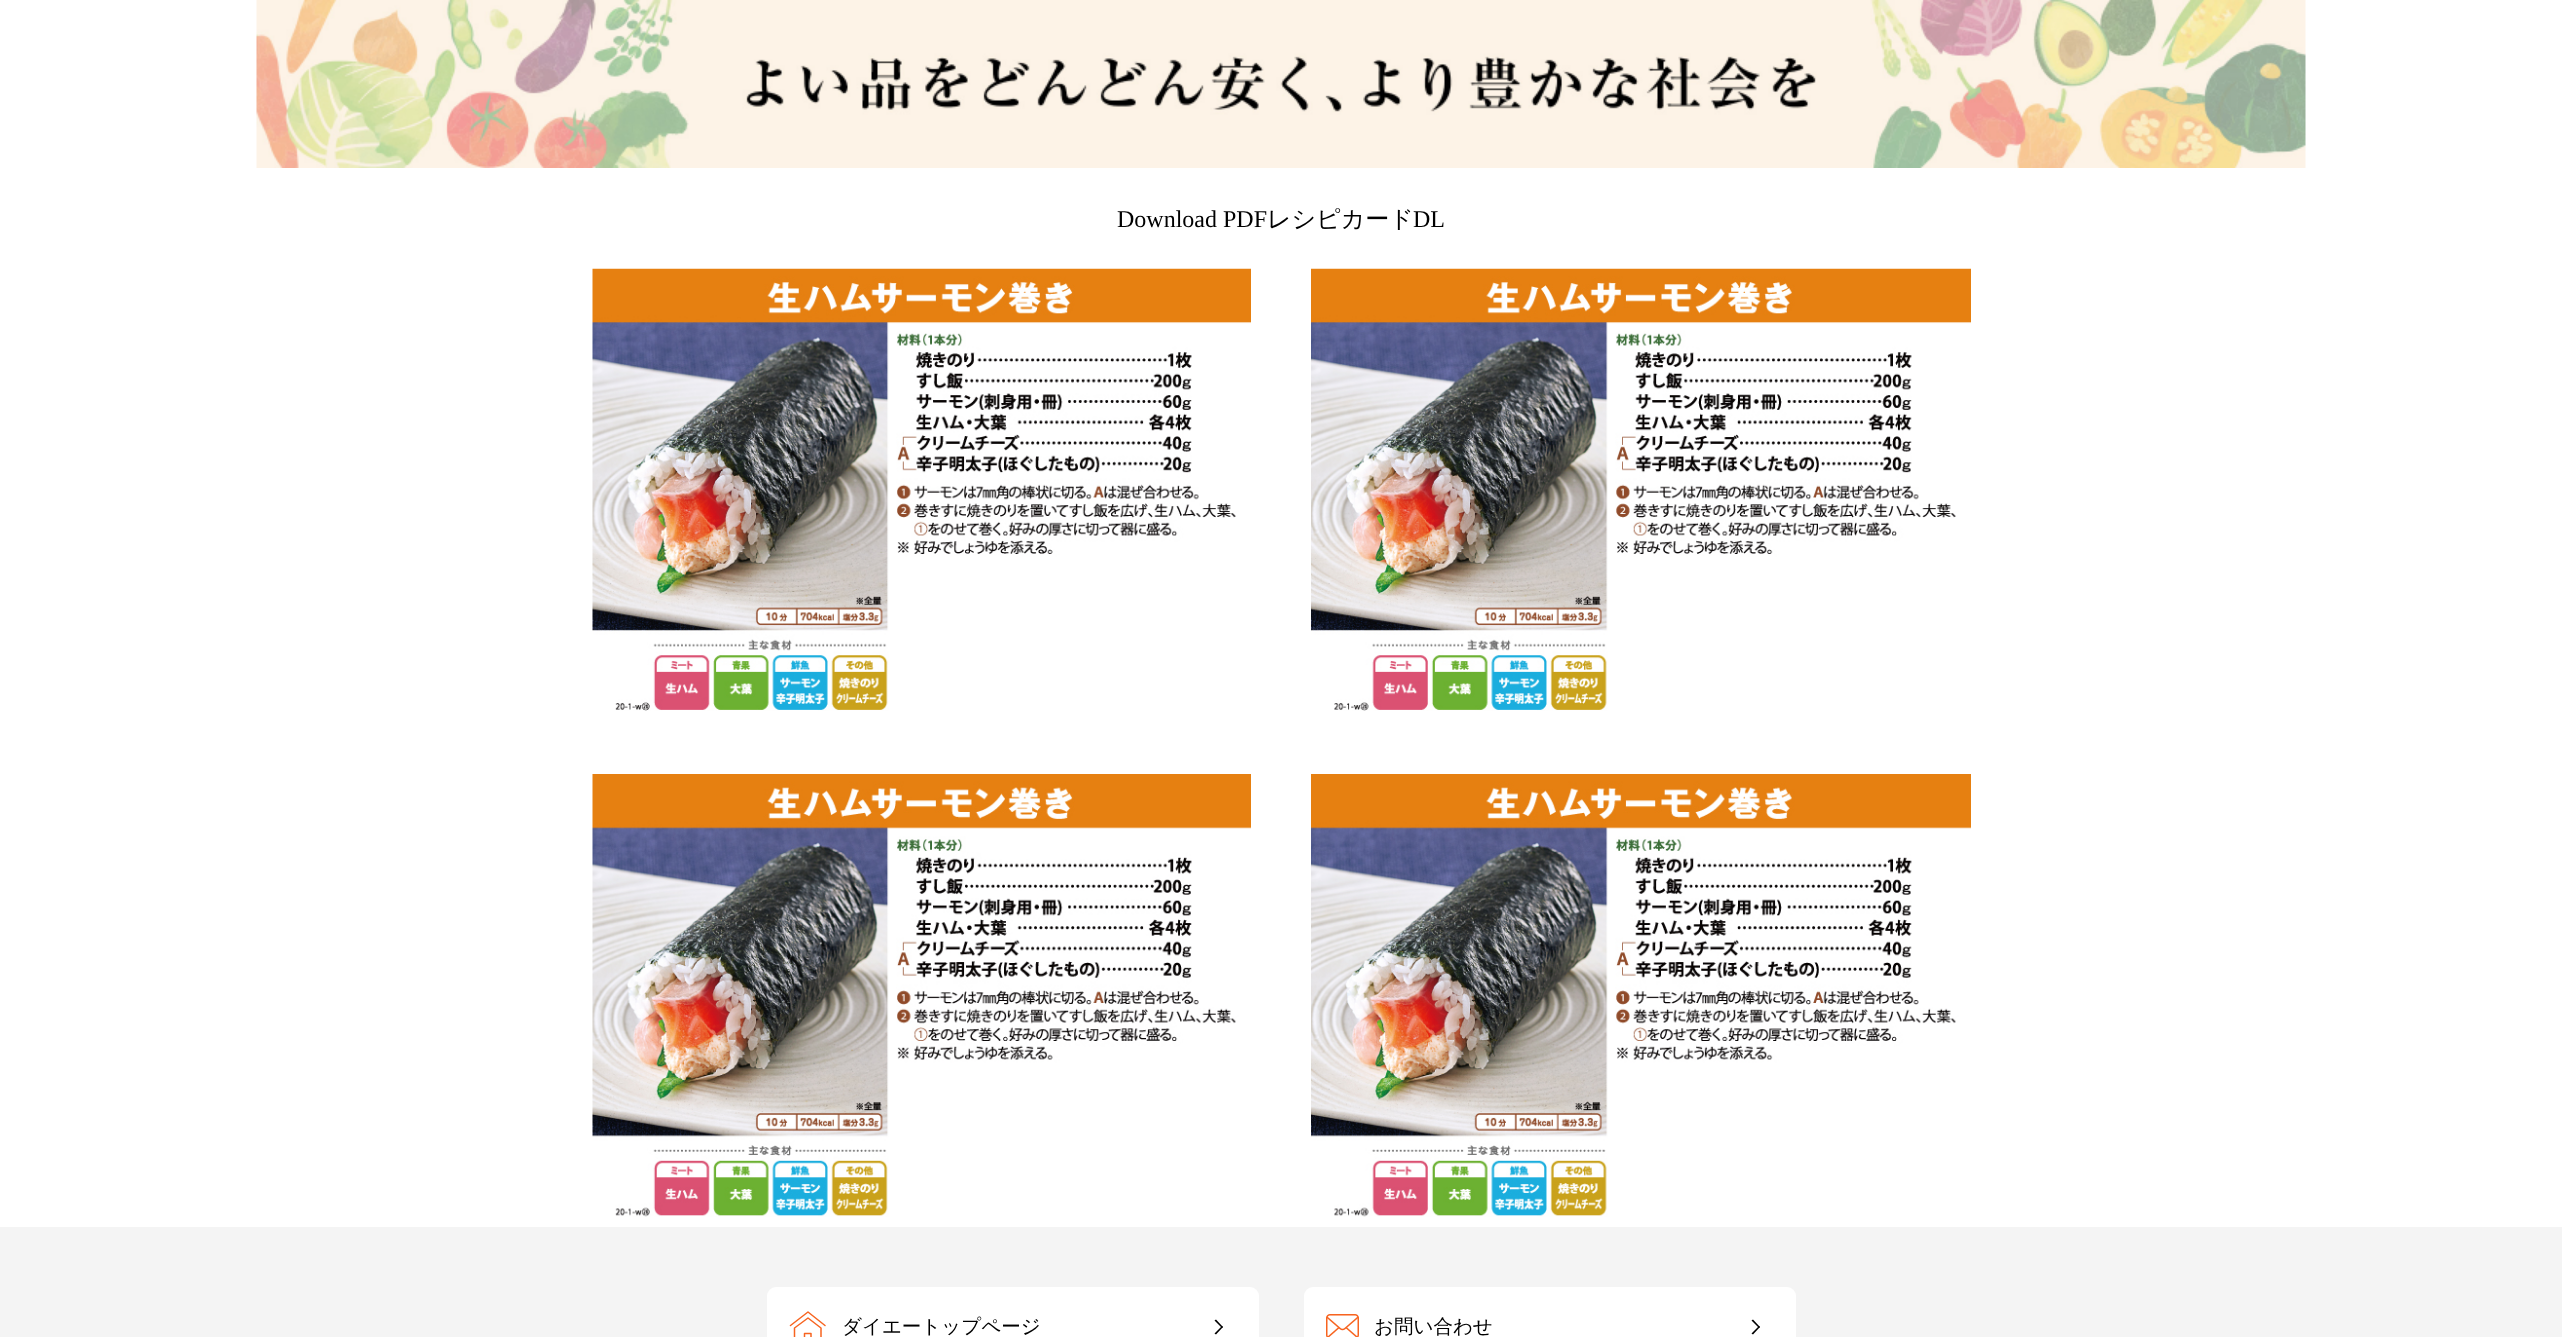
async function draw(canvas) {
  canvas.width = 2562;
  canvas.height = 1337;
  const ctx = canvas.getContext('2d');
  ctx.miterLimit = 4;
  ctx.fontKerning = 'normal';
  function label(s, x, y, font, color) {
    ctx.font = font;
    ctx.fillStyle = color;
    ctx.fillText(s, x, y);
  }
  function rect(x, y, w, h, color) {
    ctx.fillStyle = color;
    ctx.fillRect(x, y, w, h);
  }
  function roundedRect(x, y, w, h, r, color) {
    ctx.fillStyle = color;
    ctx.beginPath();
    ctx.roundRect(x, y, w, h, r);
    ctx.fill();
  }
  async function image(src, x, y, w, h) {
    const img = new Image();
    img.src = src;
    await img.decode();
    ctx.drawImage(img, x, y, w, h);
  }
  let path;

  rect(0, 0, 2562, 1337, '#fff');
  await image('assets/img1.png', 256, 0, 2050, 168);
  label('Download PDF', 1117, 227, '24px Liberation Serif', '#000');
  label('レシピカード', 1267, 227, '500 24px WenQuanYi Zen Hei', '#000');
  label('DL', 1413, 227, '24px Liberation Serif', '#000');
  await image('assets/img2.png', 592, 268, 659, 443);
  await image('assets/img3.png', 1311, 268, 660, 443);
  await image('assets/img4.png', 592, 774, 659, 443);
  await image('assets/img5.png', 1311, 774, 660, 443);
  rect(0, 1227, 2562, 110, '#f4f4f4');
  roundedRect(767, 1287, 492, 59, 9, '#fff');
  path = new Path2D('M808 1318L794.5 1328V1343H804.5V1333.5H811V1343H821V1328ZM825 1325.5L808 1312L790.5 1325.5');
  ctx.strokeStyle = '#f76420';
  ctx.lineWidth = 1.5;
  ctx.lineCap = 'round';
  ctx.lineJoin = 'round';
  ctx.stroke(path);
  label('ダイエートップページ', 842, 1333, '500 19.5px WenQuanYi Zen Hei', '#000');
  path = new Path2D('M1214.5 1320.5L1216 1319.5L1223 1327L1222 1328Z');
  ctx.fill(path);
  path = new Path2D('M1214.5 1333.5L1222 1326L1223 1327L1216 1334.5Z');
  ctx.fill(path);
  roundedRect(1304, 1287, 492, 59, 9, '#fff');
  await image('assets/img6.png', 1326, 1314, 33, 23);
  label('お問い合わせ', 1374, 1333, '500 19.5px WenQuanYi Zen Hei', '#000');
  path = new Path2D('M1751.5 1320.5L1753 1319.5L1760 1327L1759 1328Z');
  ctx.fill(path);
  path = new Path2D('M1751.5 1333.5L1759 1326L1760 1327L1753 1334.5Z');
  ctx.fill(path);
}

draw(document.querySelector('canvas'));
